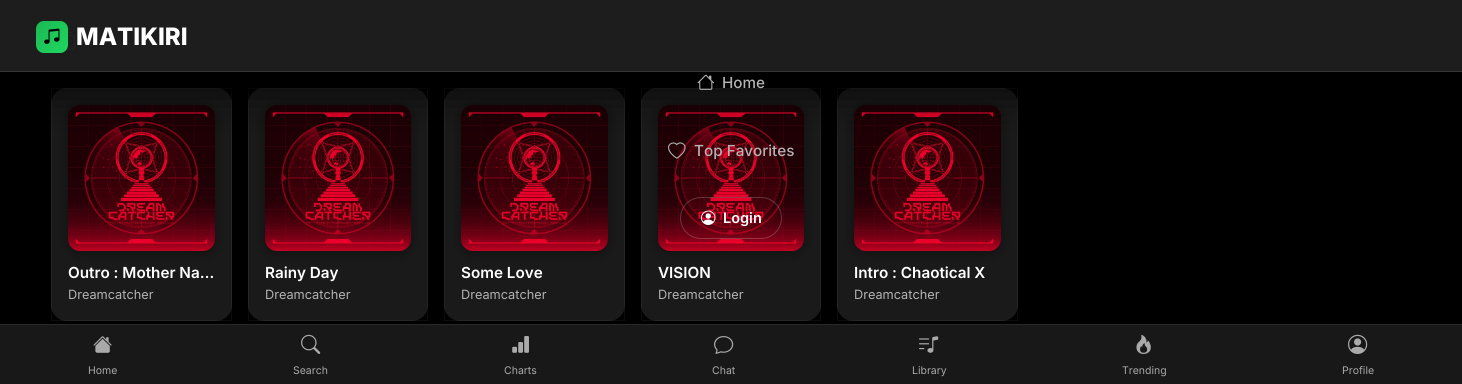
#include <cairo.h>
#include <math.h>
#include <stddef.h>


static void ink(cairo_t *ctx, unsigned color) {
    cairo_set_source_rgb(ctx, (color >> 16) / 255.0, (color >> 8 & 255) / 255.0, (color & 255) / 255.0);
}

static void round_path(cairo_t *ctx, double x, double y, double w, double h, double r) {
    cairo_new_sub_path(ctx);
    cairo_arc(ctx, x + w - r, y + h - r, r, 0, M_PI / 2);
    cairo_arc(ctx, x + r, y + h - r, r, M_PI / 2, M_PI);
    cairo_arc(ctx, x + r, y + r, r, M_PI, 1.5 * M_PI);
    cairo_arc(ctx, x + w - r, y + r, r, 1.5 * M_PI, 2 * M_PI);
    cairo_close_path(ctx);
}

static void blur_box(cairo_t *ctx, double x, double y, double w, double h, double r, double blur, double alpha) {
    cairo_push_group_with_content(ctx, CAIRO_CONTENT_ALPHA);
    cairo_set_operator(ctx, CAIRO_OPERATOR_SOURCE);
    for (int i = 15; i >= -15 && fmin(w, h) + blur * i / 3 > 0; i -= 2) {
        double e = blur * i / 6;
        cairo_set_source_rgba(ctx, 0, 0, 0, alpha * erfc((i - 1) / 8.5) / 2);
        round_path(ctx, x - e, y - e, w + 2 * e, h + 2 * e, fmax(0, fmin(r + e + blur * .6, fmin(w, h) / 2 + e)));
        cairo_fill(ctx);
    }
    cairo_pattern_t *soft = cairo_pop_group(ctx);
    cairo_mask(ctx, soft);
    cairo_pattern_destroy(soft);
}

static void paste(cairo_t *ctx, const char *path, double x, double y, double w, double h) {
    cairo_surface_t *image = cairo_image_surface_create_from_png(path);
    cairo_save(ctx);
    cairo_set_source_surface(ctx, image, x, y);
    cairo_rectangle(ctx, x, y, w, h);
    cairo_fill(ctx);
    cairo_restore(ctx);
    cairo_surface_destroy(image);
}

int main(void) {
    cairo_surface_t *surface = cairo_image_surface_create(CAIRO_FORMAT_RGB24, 1462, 384);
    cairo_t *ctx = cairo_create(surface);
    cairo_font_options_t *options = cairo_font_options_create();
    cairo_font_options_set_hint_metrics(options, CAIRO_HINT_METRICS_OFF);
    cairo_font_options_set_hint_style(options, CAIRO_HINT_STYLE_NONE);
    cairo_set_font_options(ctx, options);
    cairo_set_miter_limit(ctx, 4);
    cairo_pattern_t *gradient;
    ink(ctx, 0x000000);
    cairo_paint(ctx);
    ink(ctx, 0x1D1D1D);
    cairo_rectangle(ctx, 0, 0, 1462, 71);
    cairo_fill(ctx);
    paste(ctx, "media/5.png", 66, 28, 9, 22);
    ink(ctx, 0x1A1A1A);
    round_path(ctx, 51, 88, 181, 233, 16);
    cairo_fill(ctx);
    cairo_rectangle(ctx, 51.5, 88.5, 180, 232);
    cairo_set_source_rgba(ctx, 1, 1, 1, 0.05);
    cairo_set_line_width(ctx, 1);
    cairo_stroke(ctx);
    ink(ctx, 0x000000);
    blur_box(ctx, 68, 107, 147, 146, 12, 6, 0.4);
    paste(ctx, "media/6.png", 68, 105, 147, 146);
    ink(ctx, 0x1A1A1A);
    round_path(ctx, 248, 88, 180, 233, 16);
    cairo_fill(ctx);
    cairo_rectangle(ctx, 248.5, 88.5, 179, 232);
    cairo_set_source_rgba(ctx, 1, 1, 1, 0.05);
    cairo_stroke(ctx);
    ink(ctx, 0x000000);
    blur_box(ctx, 265, 107, 146, 146, 12, 6, 0.4);
    paste(ctx, "media/7.png", 265, 105, 146, 146);
    ink(ctx, 0x1A1A1A);
    round_path(ctx, 444, 88, 181, 233, 16);
    cairo_fill(ctx);
    cairo_rectangle(ctx, 444.5, 88.5, 180, 232);
    cairo_set_source_rgba(ctx, 1, 1, 1, 0.05);
    cairo_stroke(ctx);
    ink(ctx, 0x000000);
    blur_box(ctx, 461, 107, 147, 146, 12, 6, 0.4);
    paste(ctx, "media/8.png", 461, 105, 147, 146);
    ink(ctx, 0x1A1A1A);
    round_path(ctx, 641, 88, 180, 233, 16);
    cairo_fill(ctx);
    cairo_rectangle(ctx, 641.5, 88.5, 179, 232);
    cairo_set_source_rgba(ctx, 1, 1, 1, 0.05);
    cairo_stroke(ctx);
    ink(ctx, 0x000000);
    blur_box(ctx, 658, 107, 146, 146, 12, 6, 0.4);
    paste(ctx, "media/9.png", 658, 105, 146, 146);
    ink(ctx, 0x1A1A1A);
    round_path(ctx, 837, 88, 181, 233, 16);
    cairo_fill(ctx);
    cairo_rectangle(ctx, 837.5, 88.5, 180, 232);
    cairo_set_source_rgba(ctx, 1, 1, 1, 0.05);
    cairo_stroke(ctx);
    ink(ctx, 0x000000);
    blur_box(ctx, 854, 107, 147, 146, 12, 6, 0.4);
    paste(ctx, "media/10.png", 854, 105, 147, 146);
    cairo_save(ctx);
    cairo_rectangle(ctx, 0, 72, 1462, 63);
    cairo_clip(ctx);
    blur_box(ctx, 0, 16, 1462, 72, 0, 24, 0.8);
    cairo_restore(ctx);
    ink(ctx, 0x383838);
    cairo_rectangle(ctx, 0, 71, 1462, 1);
    cairo_fill(ctx);
    gradient = cairo_pattern_create_linear(36, 21, 68, 53);
    cairo_pattern_add_color_stop_rgba(gradient, 0, 0.114, 0.725, 0.329, 1);
    cairo_pattern_add_color_stop_rgba(gradient, 1, 0.118, 0.843, 0.376, 1);
    cairo_set_source(ctx, gradient);
    cairo_pattern_destroy(gradient);
    round_path(ctx, 36, 21, 32, 32, 8);
    cairo_fill(ctx);
    paste(ctx, "media/1.png", 44, 28, 16, 16);
    cairo_select_font_face(ctx, "Inter ExtraBold", CAIRO_FONT_SLANT_NORMAL, CAIRO_FONT_WEIGHT_NORMAL);
    cairo_set_font_size(ctx, 24);
    ink(ctx, 0xFFFFFF);
    cairo_move_to(ctx, 76, 45);
    cairo_show_text(ctx, "MATIKIRI");
    paste(ctx, "media/2.png", 697, 74, 17, 16);
    cairo_select_font_face(ctx, "Inter Medium", CAIRO_FONT_SLANT_NORMAL, CAIRO_FONT_WEIGHT_NORMAL);
    cairo_set_font_size(ctx, 15.25);
    ink(ctx, 0xB3B3B3);
    cairo_move_to(ctx, 722, 88);
    cairo_show_text(ctx, "Home");
    paste(ctx, "media/3.png", 668, 142, 18, 17);
    cairo_move_to(ctx, 694, 156);
    cairo_show_text(ctx, "Top Favorites");
    round_path(ctx, 680.5, 197.5, 101, 41, 20.5);
    cairo_set_source_rgba(ctx, 1, 1, 1, 0.2);
    cairo_stroke(ctx);
    paste(ctx, "media/4.png", 701, 210, 15, 15);
    cairo_select_font_face(ctx, "Inter SemiBold", CAIRO_FONT_SLANT_NORMAL, CAIRO_FONT_WEIGHT_NORMAL);
    cairo_set_font_size(ctx, 14.5);
    ink(ctx, 0xFFFFFF);
    cairo_move_to(ctx, 723, 223);
    cairo_show_text(ctx, "Login");
    cairo_set_font_size(ctx, 15.25);
    cairo_move_to(ctx, 68, 278);
    cairo_show_text(ctx, "Outro : Mother Na…");
    cairo_select_font_face(ctx, "Inter", CAIRO_FONT_SLANT_NORMAL, CAIRO_FONT_WEIGHT_NORMAL);
    cairo_set_font_size(ctx, 12.75);
    ink(ctx, 0xB3B3B3);
    cairo_move_to(ctx, 68, 299);
    cairo_show_text(ctx, "Dreamcatcher");
    cairo_select_font_face(ctx, "Inter SemiBold", CAIRO_FONT_SLANT_NORMAL, CAIRO_FONT_WEIGHT_NORMAL);
    cairo_set_font_size(ctx, 15.25);
    ink(ctx, 0xFFFFFF);
    cairo_move_to(ctx, 265, 278);
    cairo_show_text(ctx, "Rainy Day");
    cairo_select_font_face(ctx, "Inter", CAIRO_FONT_SLANT_NORMAL, CAIRO_FONT_WEIGHT_NORMAL);
    cairo_set_font_size(ctx, 12.75);
    ink(ctx, 0xB3B3B3);
    cairo_move_to(ctx, 265, 299);
    cairo_show_text(ctx, "Dreamcatcher");
    cairo_select_font_face(ctx, "Inter SemiBold", CAIRO_FONT_SLANT_NORMAL, CAIRO_FONT_WEIGHT_NORMAL);
    cairo_set_font_size(ctx, 15.25);
    ink(ctx, 0xFFFFFF);
    cairo_move_to(ctx, 461, 278);
    cairo_show_text(ctx, "Some Love");
    cairo_select_font_face(ctx, "Inter", CAIRO_FONT_SLANT_NORMAL, CAIRO_FONT_WEIGHT_NORMAL);
    cairo_set_font_size(ctx, 12.75);
    ink(ctx, 0xB3B3B3);
    cairo_move_to(ctx, 461, 299);
    cairo_show_text(ctx, "Dreamcatcher");
    cairo_select_font_face(ctx, "Inter SemiBold", CAIRO_FONT_SLANT_NORMAL, CAIRO_FONT_WEIGHT_NORMAL);
    cairo_set_font_size(ctx, 15.25);
    ink(ctx, 0xFFFFFF);
    cairo_move_to(ctx, 658, 278);
    cairo_show_text(ctx, "VISION");
    cairo_select_font_face(ctx, "Inter", CAIRO_FONT_SLANT_NORMAL, CAIRO_FONT_WEIGHT_NORMAL);
    cairo_set_font_size(ctx, 12.75);
    ink(ctx, 0xB3B3B3);
    cairo_move_to(ctx, 658, 299);
    cairo_show_text(ctx, "Dreamcatcher");
    cairo_select_font_face(ctx, "Inter SemiBold", CAIRO_FONT_SLANT_NORMAL, CAIRO_FONT_WEIGHT_NORMAL);
    cairo_set_font_size(ctx, 15.25);
    ink(ctx, 0xFFFFFF);
    cairo_move_to(ctx, 854, 278);
    cairo_show_text(ctx, "Intro : Chaotical X");
    cairo_select_font_face(ctx, "Inter", CAIRO_FONT_SLANT_NORMAL, CAIRO_FONT_WEIGHT_NORMAL);
    cairo_set_font_size(ctx, 12.75);
    ink(ctx, 0xB3B3B3);
    cairo_move_to(ctx, 854, 299);
    cairo_show_text(ctx, "Dreamcatcher");
    ink(ctx, 0x181818);
    cairo_rectangle(ctx, 0, 325, 1462, 59);
    cairo_fill(ctx);
    ink(ctx, 0x282828);
    cairo_rectangle(ctx, 0, 324, 1462, 1);
    cairo_fill(ctx);
    paste(ctx, "media/11.png", 93, 336, 19, 17);
    cairo_set_font_size(ctx, 10.5);
    ink(ctx, 0xAAAAAA);
    cairo_move_to(ctx, 88, 374);
    cairo_show_text(ctx, "Home");
    paste(ctx, "media/12.png", 301, 334, 20, 20);
    cairo_move_to(ctx, 293, 374);
    cairo_show_text(ctx, "Search");
    paste(ctx, "media/13.png", 512, 336, 17, 17);
    cairo_move_to(ctx, 504, 374);
    cairo_show_text(ctx, "Charts");
    paste(ctx, "media/14.png", 714, 336, 20, 18);
    cairo_move_to(ctx, 712, 374);
    cairo_show_text(ctx, "Chat");
    paste(ctx, "media/15.png", 919, 336, 20, 17);
    cairo_move_to(ctx, 912, 374);
    cairo_show_text(ctx, "Library");
    paste(ctx, "media/16.png", 1136, 334, 15, 20);
    cairo_move_to(ctx, 1122, 374);
    cairo_show_text(ctx, "Trending");
    paste(ctx, "media/17.png", 1348, 334, 20, 20);
    cairo_move_to(ctx, 1342, 374);
    cairo_show_text(ctx, "Profile");
    cairo_surface_write_to_png(surface, "image.png");
    cairo_font_options_destroy(options);
    cairo_destroy(ctx);
    cairo_surface_destroy(surface);
    return 0;
}
